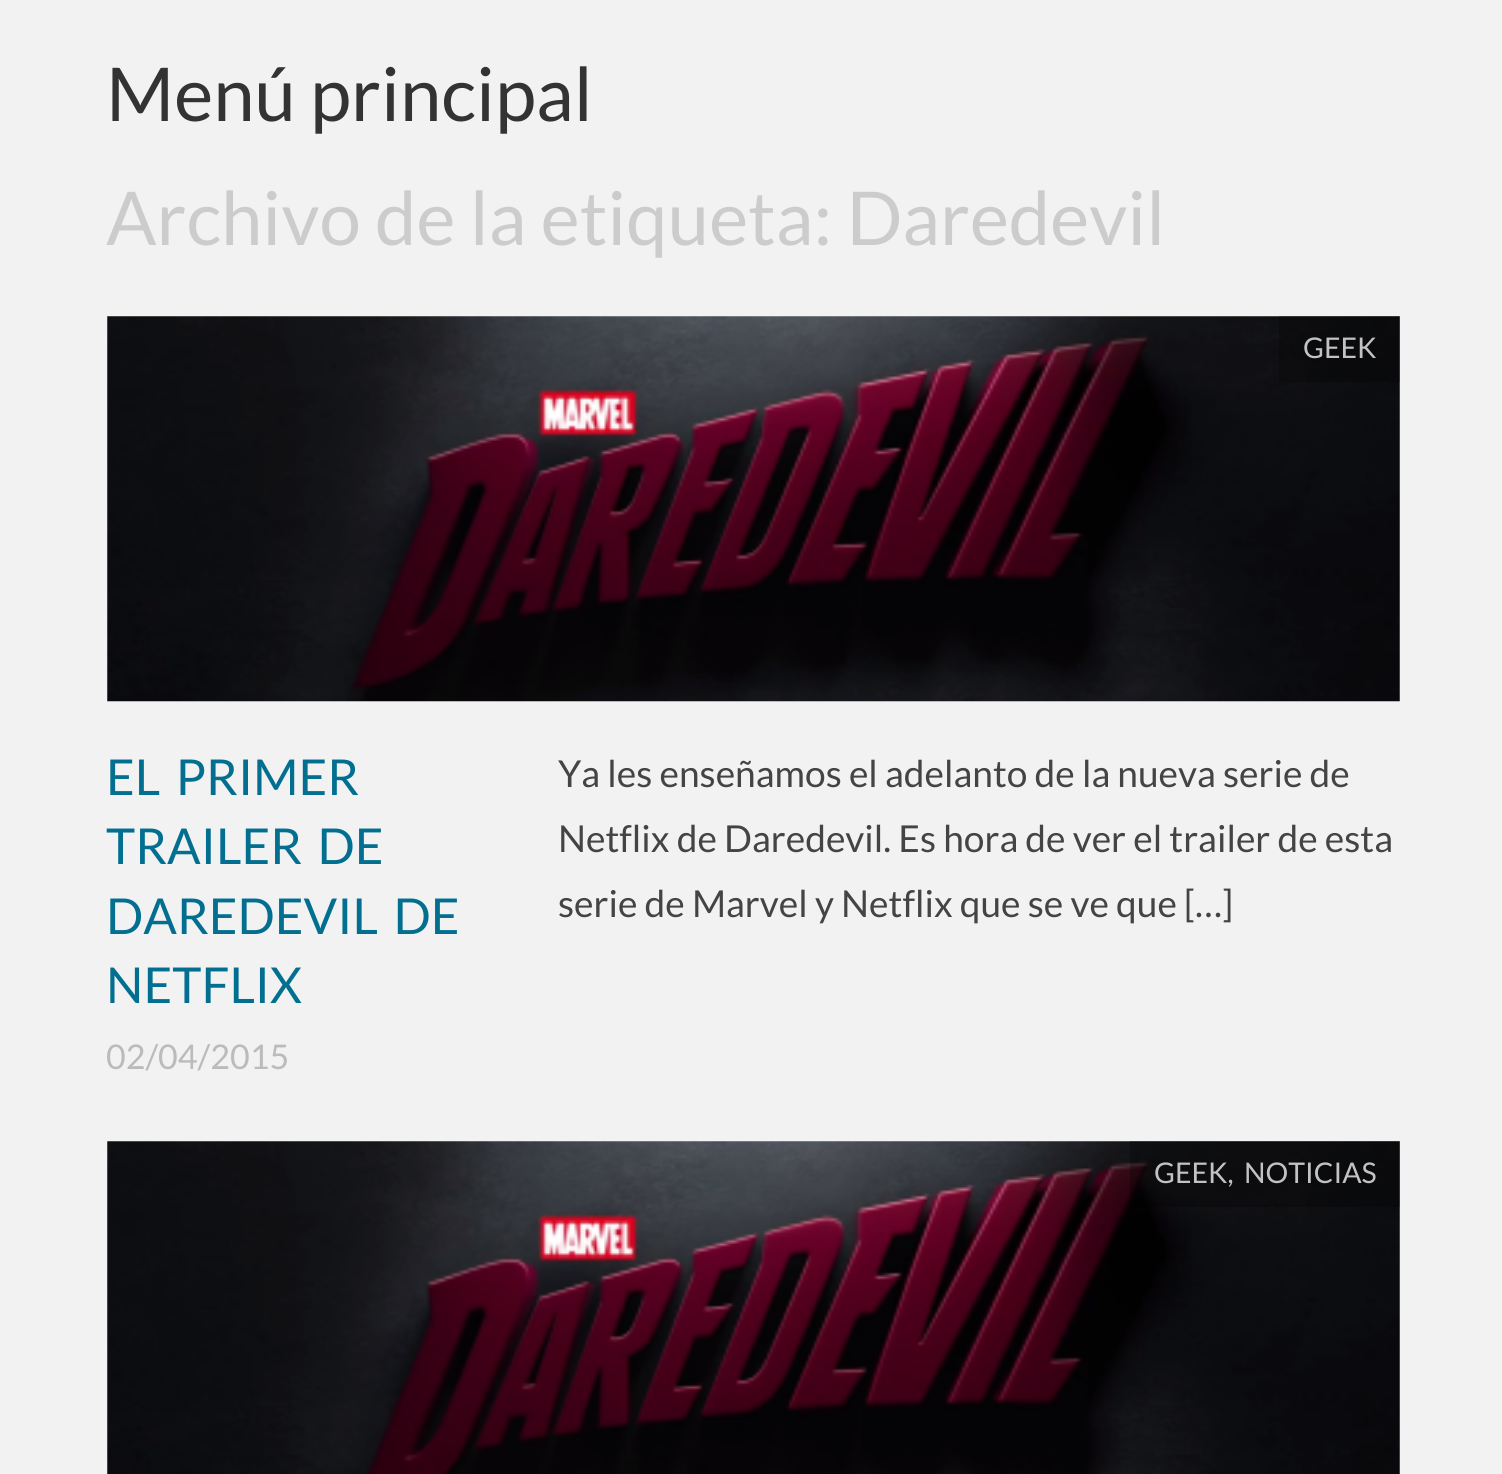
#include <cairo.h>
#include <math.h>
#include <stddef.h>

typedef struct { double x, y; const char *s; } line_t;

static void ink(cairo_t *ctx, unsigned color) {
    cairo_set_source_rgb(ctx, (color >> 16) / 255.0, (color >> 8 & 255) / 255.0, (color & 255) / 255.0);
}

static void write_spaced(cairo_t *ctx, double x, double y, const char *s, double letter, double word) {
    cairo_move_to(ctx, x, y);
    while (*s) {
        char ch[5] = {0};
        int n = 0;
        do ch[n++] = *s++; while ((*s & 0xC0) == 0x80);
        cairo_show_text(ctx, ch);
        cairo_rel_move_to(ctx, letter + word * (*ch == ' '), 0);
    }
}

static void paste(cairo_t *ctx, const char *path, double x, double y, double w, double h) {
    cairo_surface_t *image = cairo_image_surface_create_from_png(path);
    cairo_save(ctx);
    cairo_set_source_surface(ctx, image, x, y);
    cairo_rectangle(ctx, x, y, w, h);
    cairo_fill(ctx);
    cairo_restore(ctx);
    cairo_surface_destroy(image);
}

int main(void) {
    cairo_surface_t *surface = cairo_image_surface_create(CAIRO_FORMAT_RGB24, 1502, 1474);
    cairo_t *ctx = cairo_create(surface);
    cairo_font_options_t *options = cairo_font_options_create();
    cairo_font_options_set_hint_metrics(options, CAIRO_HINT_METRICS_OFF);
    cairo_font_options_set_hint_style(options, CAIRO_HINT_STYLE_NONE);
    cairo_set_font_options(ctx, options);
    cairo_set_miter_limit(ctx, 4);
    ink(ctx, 0xF2F2F2);
    cairo_paint(ctx);
    cairo_select_font_face(ctx, "Lato", CAIRO_FONT_SLANT_NORMAL, CAIRO_FONT_WEIGHT_NORMAL);
    cairo_set_font_size(ctx, 74.25);
    ink(ctx, 0x333333);
    cairo_move_to(ctx, 106, 121);
    cairo_show_text(ctx, "Menú principal");
    ink(ctx, 0xCCCCCC);
    cairo_move_to(ctx, 106, 245);
    cairo_show_text(ctx, "Archivo de la etiqueta: Daredevil");
    paste(ctx, "media/1.png", 107, 316, 1293, 386);
    cairo_set_source_rgba(ctx, 0, 0, 0, 0.25);
    cairo_rectangle(ctx, 1279, 316, 121, 66);
    cairo_fill(ctx);
    cairo_set_font_size(ctx, 28.5);
    ink(ctx, 0xC2C2C3);
    cairo_move_to(ctx, 1303, 358);
    cairo_show_text(ctx, "GEEK");
    cairo_set_font_size(ctx, 49.5);
    ink(ctx, 0x026F90);
    {
        static const line_t items[] = {
            {106, 795, "EL PRIMER"},
            {106, 864, "TRAILER DE"},
            {106, 934, "DAREDEVIL DE"},
        };
        for (size_t i = 0; i < sizeof items / sizeof *items; i++) {
            write_spaced(ctx, items[i].x, items[i].y, items[i].s, 0, 6);
        }
    }
    cairo_move_to(ctx, 106, 1003);
    cairo_show_text(ctx, "NETFLIX");
    cairo_set_font_size(ctx, 34);
    ink(ctx, 0xBBBBBB);
    cairo_move_to(ctx, 106, 1069);
    cairo_show_text(ctx, "02/04/2015");
    cairo_set_font_size(ctx, 37.1);
    ink(ctx, 0x444444);
    {
        static const line_t items[] = {
            {558, 787, "Ya les enseñamos el adelanto de la nueva serie de"},
            {558, 852, "Netflix de Daredevil. Es hora de ver el trailer de esta"},
            {558, 917, "serie de Marvel y Netflix que se ve que […]"},
        };
        for (size_t i = 0; i < sizeof items / sizeof *items; i++) {
            cairo_move_to(ctx, items[i].x, items[i].y);
            cairo_show_text(ctx, items[i].s);
        }
    }
    paste(ctx, "media/2.png", 107, 1141, 1293, 333);
    cairo_set_source_rgba(ctx, 0, 0, 0, 0.25);
    cairo_rectangle(ctx, 1130, 1141, 270, 66);
    cairo_fill(ctx);
    cairo_set_font_size(ctx, 28.5);
    ink(ctx, 0xC2C2C3);
    cairo_move_to(ctx, 1154, 1183);
    cairo_show_text(ctx, "GEEK,");
    cairo_move_to(ctx, 1244, 1183);
    cairo_show_text(ctx, "NOTICIAS");
    cairo_surface_write_to_png(surface, "image.png");
    cairo_font_options_destroy(options);
    cairo_destroy(ctx);
    cairo_surface_destroy(surface);
    return 0;
}
